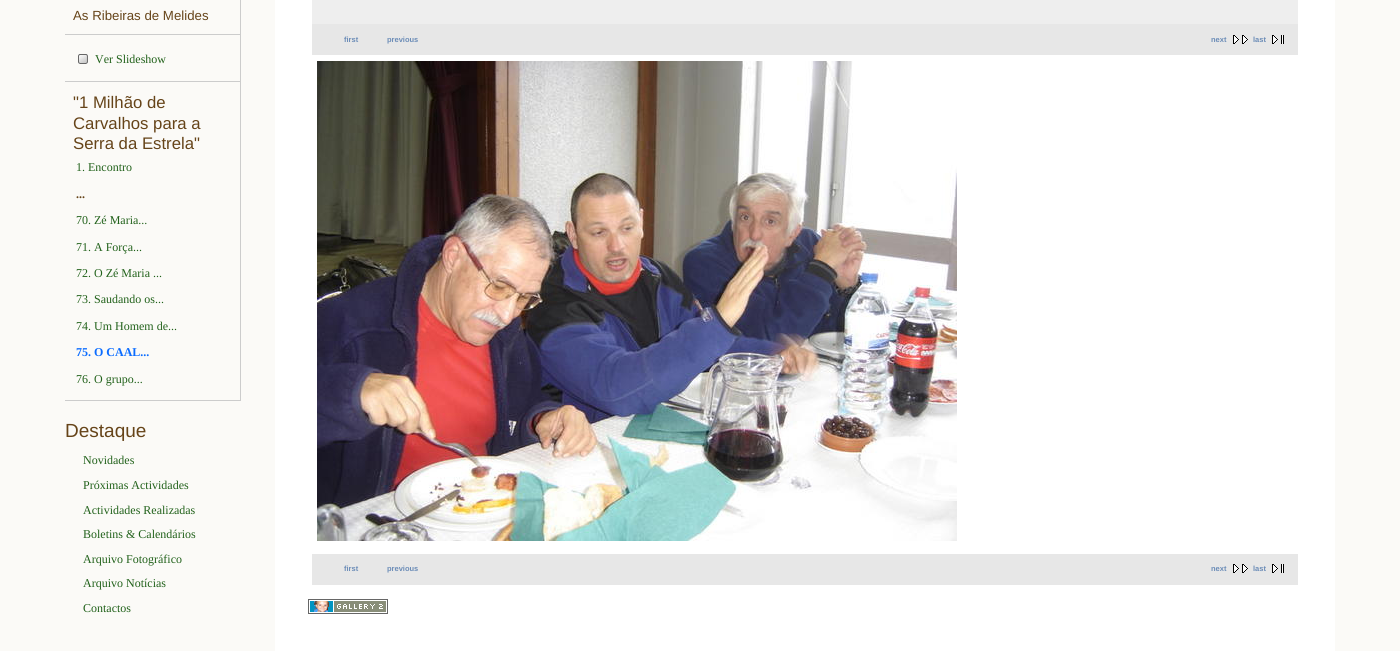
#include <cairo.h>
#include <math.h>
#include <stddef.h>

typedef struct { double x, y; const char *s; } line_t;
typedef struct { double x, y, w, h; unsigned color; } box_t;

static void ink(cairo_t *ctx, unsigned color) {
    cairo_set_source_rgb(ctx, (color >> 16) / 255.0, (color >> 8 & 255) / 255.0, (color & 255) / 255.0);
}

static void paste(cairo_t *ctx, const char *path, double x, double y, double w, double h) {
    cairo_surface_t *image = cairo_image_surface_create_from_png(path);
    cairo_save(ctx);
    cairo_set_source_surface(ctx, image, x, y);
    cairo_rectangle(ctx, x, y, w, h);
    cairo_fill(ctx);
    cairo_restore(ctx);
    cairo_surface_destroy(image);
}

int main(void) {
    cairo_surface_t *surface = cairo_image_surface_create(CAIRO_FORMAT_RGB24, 1400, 651);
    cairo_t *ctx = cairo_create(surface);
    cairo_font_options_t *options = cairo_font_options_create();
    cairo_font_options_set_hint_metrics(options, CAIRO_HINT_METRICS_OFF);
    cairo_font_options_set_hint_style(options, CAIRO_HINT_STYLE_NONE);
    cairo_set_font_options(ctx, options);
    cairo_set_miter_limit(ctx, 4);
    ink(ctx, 0xFBFAF7);
    cairo_paint(ctx);
    ink(ctx, 0xCCCCCC);
    cairo_rectangle(ctx, 240, 0, 1, 401);
    cairo_fill(ctx);
    cairo_rectangle(ctx, 65, 34, 175, 1);
    cairo_fill(ctx);
    cairo_select_font_face(ctx, "Liberation Sans", CAIRO_FONT_SLANT_NORMAL, CAIRO_FONT_WEIGHT_NORMAL);
    cairo_set_font_size(ctx, 13.25);
    ink(ctx, 0x664419);
    cairo_move_to(ctx, 73, 20);
    cairo_show_text(ctx, "As Ribeiras de Melides");
    ink(ctx, 0xCCCCCC);
    cairo_rectangle(ctx, 65, 81, 175, 1);
    cairo_fill(ctx);
    paste(ctx, "media/1.png", 78, 54, 10, 10);
    cairo_select_font_face(ctx, "Liberation Serif", CAIRO_FONT_SLANT_NORMAL, CAIRO_FONT_WEIGHT_NORMAL);
    cairo_set_font_size(ctx, 12);
    ink(ctx, 0x21611A);
    cairo_move_to(ctx, 95, 63);
    cairo_show_text(ctx, "Ver Slideshow");
    ink(ctx, 0xCCCCCC);
    cairo_rectangle(ctx, 65, 400, 175, 1);
    cairo_fill(ctx);
    cairo_select_font_face(ctx, "Liberation Sans", CAIRO_FONT_SLANT_NORMAL, CAIRO_FONT_WEIGHT_NORMAL);
    cairo_set_font_size(ctx, 16.75);
    ink(ctx, 0x664419);
    {
        static const line_t items[] = {
            {73, 108, "\"1 Milhão de"},
            {73, 129, "Carvalhos para a"},
            {73, 149, "Serra da Estrela\""},
        };
        for (size_t i = 0; i < sizeof items / sizeof *items; i++) {
            cairo_move_to(ctx, items[i].x, items[i].y);
            cairo_show_text(ctx, items[i].s);
        }
    }
    cairo_select_font_face(ctx, "Liberation Serif", CAIRO_FONT_SLANT_NORMAL, CAIRO_FONT_WEIGHT_NORMAL);
    cairo_set_font_size(ctx, 12);
    ink(ctx, 0x21611A);
    cairo_move_to(ctx, 76, 171);
    cairo_show_text(ctx, "1. Encontro");
    cairo_select_font_face(ctx, "Liberation Serif", CAIRO_FONT_SLANT_NORMAL, CAIRO_FONT_WEIGHT_BOLD);
    ink(ctx, 0x664419);
    cairo_move_to(ctx, 76, 198);
    cairo_show_text(ctx, "...");
    cairo_select_font_face(ctx, "Liberation Serif", CAIRO_FONT_SLANT_NORMAL, CAIRO_FONT_WEIGHT_NORMAL);
    ink(ctx, 0x21611A);
    {
        static const line_t items[] = {
            {76, 224, "70. Zé Maria..."},
            {76, 251, "71. A Força..."},
            {76, 277, "72. O Zé Maria ..."},
            {76, 303, "73. Saudando os..."},
            {76, 330, "74. Um Homem de..."},
        };
        for (size_t i = 0; i < sizeof items / sizeof *items; i++) {
            cairo_move_to(ctx, items[i].x, items[i].y);
            cairo_show_text(ctx, items[i].s);
        }
    }
    cairo_select_font_face(ctx, "Liberation Serif", CAIRO_FONT_SLANT_NORMAL, CAIRO_FONT_WEIGHT_BOLD);
    ink(ctx, 0x0B6CFF);
    cairo_move_to(ctx, 76, 356);
    cairo_show_text(ctx, "75. O CAAL...");
    cairo_select_font_face(ctx, "Liberation Serif", CAIRO_FONT_SLANT_NORMAL, CAIRO_FONT_WEIGHT_NORMAL);
    ink(ctx, 0x21611A);
    cairo_move_to(ctx, 76, 383);
    cairo_show_text(ctx, "76. O grupo...");
    cairo_select_font_face(ctx, "Liberation Sans", CAIRO_FONT_SLANT_NORMAL, CAIRO_FONT_WEIGHT_NORMAL);
    cairo_set_font_size(ctx, 19);
    ink(ctx, 0x664419);
    cairo_move_to(ctx, 65, 437);
    cairo_show_text(ctx, "Destaque");
    cairo_select_font_face(ctx, "Liberation Serif", CAIRO_FONT_SLANT_NORMAL, CAIRO_FONT_WEIGHT_NORMAL);
    cairo_set_font_size(ctx, 12);
    ink(ctx, 0x21611A);
    {
        static const line_t items[] = {
            {83, 464, "Novidades"},
            {83, 489, "Próximas Actividades"},
            {83, 514, "Actividades Realizadas"},
            {83, 538, "Boletins & Calendários"},
            {83, 563, "Arquivo Fotográfico"},
            {83, 587, "Arquivo Notícias"},
            {83, 612, "Contactos"},
        };
        for (size_t i = 0; i < sizeof items / sizeof *items; i++) {
            cairo_move_to(ctx, items[i].x, items[i].y);
            cairo_show_text(ctx, items[i].s);
        }
    }
    {
        static const box_t items[] = {
            {275, 0, 1060, 651, 0xFFFFFF},
            {312, 0, 986, 24, 0xEEEEEE},
            {312, 24, 986, 31, 0xE7E7E7},
        };
        for (size_t i = 0; i < sizeof items / sizeof *items; i++) {
            ink(ctx, items[i].color);
            cairo_rectangle(ctx, items[i].x, items[i].y, items[i].w, items[i].h);
            cairo_fill(ctx);
        }
    }
    cairo_select_font_face(ctx, "Liberation Sans", CAIRO_FONT_SLANT_NORMAL, CAIRO_FONT_WEIGHT_BOLD);
    cairo_set_font_size(ctx, 7.5);
    ink(ctx, 0x6B8CB7);
    {
        static const line_t items[] = {
            {344, 42, "first"},
            {387, 42, "previous"},
            {1211, 42, "next"},
        };
        for (size_t i = 0; i < sizeof items / sizeof *items; i++) {
            cairo_move_to(ctx, items[i].x, items[i].y);
            cairo_show_text(ctx, items[i].s);
        }
    }
    paste(ctx, "media/2.png", 1233, 35, 15, 9);
    cairo_move_to(ctx, 1253, 42);
    cairo_show_text(ctx, "last");
    paste(ctx, "media/3.png", 1272, 35, 12, 9);
    paste(ctx, "media/4.png", 317, 61, 640, 480);
    ink(ctx, 0xE7E7E7);
    cairo_rectangle(ctx, 312, 554, 986, 31);
    cairo_fill(ctx);
    ink(ctx, 0x6B8CB7);
    {
        static const line_t items[] = {
            {344, 571, "first"},
            {387, 571, "previous"},
            {1211, 571, "next"},
        };
        for (size_t i = 0; i < sizeof items / sizeof *items; i++) {
            cairo_move_to(ctx, items[i].x, items[i].y);
            cairo_show_text(ctx, items[i].s);
        }
    }
    paste(ctx, "media/2.png", 1233, 564, 15, 9);
    cairo_move_to(ctx, 1253, 571);
    cairo_show_text(ctx, "last");
    paste(ctx, "media/3.png", 1272, 564, 12, 9);
    paste(ctx, "media/5.png", 308, 599, 80, 15);
    cairo_surface_write_to_png(surface, "image.png");
    cairo_font_options_destroy(options);
    cairo_destroy(ctx);
    cairo_surface_destroy(surface);
    return 0;
}
